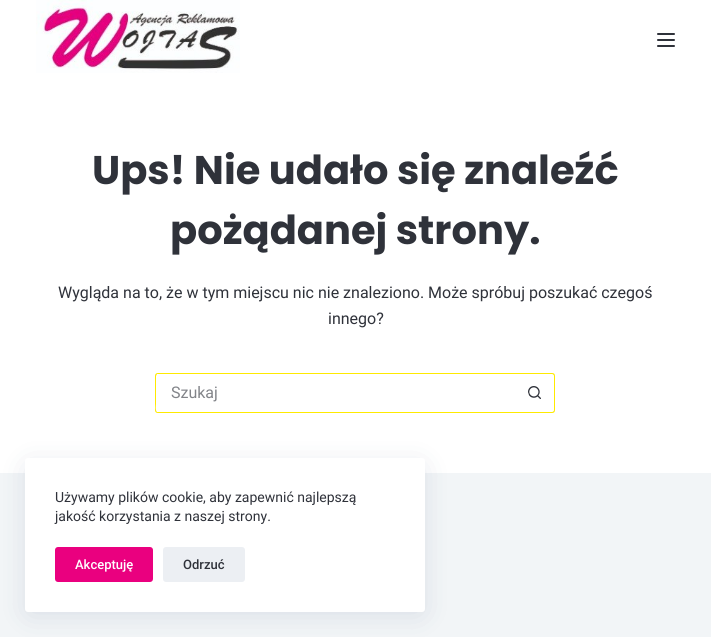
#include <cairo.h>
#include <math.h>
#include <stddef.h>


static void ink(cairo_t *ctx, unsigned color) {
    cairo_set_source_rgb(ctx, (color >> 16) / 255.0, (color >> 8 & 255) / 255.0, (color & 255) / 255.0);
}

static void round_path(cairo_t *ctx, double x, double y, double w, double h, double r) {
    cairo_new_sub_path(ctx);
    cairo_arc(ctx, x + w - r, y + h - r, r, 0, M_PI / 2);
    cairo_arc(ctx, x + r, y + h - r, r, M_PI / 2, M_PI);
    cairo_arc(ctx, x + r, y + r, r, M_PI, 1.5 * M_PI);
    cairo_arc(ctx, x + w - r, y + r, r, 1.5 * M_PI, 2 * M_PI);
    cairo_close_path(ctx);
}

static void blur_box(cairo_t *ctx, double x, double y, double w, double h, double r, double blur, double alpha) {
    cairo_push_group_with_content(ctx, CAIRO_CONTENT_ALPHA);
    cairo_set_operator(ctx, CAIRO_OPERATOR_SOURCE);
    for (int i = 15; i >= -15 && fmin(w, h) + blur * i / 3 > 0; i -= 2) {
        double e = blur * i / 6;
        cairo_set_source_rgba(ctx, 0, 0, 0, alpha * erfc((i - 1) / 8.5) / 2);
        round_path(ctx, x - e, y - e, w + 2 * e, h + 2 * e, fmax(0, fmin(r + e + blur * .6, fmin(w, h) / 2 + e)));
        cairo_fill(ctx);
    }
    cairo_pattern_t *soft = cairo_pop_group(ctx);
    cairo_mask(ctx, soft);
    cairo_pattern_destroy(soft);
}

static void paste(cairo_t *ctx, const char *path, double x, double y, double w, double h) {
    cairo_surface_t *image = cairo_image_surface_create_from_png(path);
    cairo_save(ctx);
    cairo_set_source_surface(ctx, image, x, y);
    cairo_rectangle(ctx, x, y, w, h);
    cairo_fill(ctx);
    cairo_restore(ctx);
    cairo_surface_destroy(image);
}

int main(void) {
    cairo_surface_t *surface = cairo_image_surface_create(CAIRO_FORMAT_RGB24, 711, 637);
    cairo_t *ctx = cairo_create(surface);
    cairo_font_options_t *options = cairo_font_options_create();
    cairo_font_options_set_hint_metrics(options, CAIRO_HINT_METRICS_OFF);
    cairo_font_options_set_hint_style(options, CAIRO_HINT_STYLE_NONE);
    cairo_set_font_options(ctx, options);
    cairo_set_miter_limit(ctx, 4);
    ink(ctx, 0xFFFFFF);
    cairo_paint(ctx);
    paste(ctx, "media/1.png", 36, 0, 204, 73);
    ink(ctx, 0x2F323A);
    round_path(ctx, 657, 33, 18, 2, 1);
    cairo_fill(ctx);
    round_path(ctx, 657, 39, 18, 2, 1);
    cairo_fill(ctx);
    round_path(ctx, 657, 45, 18, 2, 1);
    cairo_fill(ctx);
    cairo_select_font_face(ctx, "Poppins", CAIRO_FONT_SLANT_NORMAL, CAIRO_FONT_WEIGHT_BOLD);
    cairo_set_font_size(ctx, 40);
    cairo_move_to(ctx, 92, 184);
    cairo_show_text(ctx, "Ups! Nie udało się znaleźć");
    cairo_move_to(ctx, 170, 244);
    cairo_show_text(ctx, "pożądanej strony.");
    cairo_select_font_face(ctx, "Roboto", CAIRO_FONT_SLANT_NORMAL, CAIRO_FONT_WEIGHT_NORMAL);
    cairo_set_font_size(ctx, 16);
    cairo_move_to(ctx, 58, 298);
    cairo_show_text(ctx, "Wygląda na to, że w tym miejscu nic nie znaleziono. Może spróbuj poszukać czegoś");
    cairo_move_to(ctx, 328, 324);
    cairo_show_text(ctx, "innego?");
    ink(ctx, 0xFEEA00);
    cairo_set_fill_rule(ctx, CAIRO_FILL_RULE_EVEN_ODD);
    cairo_new_path(ctx);
    cairo_move_to(ctx, 158, 373);
    cairo_line_to(ctx, 515, 373);
    cairo_line_to(ctx, 515, 413);
    cairo_line_to(ctx, 158, 413);
    cairo_curve_to(ctx, 156, 413, 155, 412, 155, 410);
    cairo_line_to(ctx, 155, 376);
    cairo_curve_to(ctx, 155, 374, 156, 373, 158, 373);
    cairo_close_path(ctx);
    cairo_move_to(ctx, 158, 374);
    cairo_line_to(ctx, 515, 374);
    cairo_line_to(ctx, 515, 412);
    cairo_line_to(ctx, 157, 412);
    cairo_curve_to(ctx, 155, 410, 156, 405, 156, 404);
    cairo_line_to(ctx, 156, 376);
    cairo_line_to(ctx, 157, 374);
    cairo_close_path(ctx);
    cairo_fill(ctx);
    ink(ctx, 0x828489);
    cairo_move_to(ctx, 171, 398);
    cairo_show_text(ctx, "Szukaj");
    ink(ctx, 0xFEEA00);
    cairo_new_path(ctx);
    cairo_move_to(ctx, 515, 373);
    cairo_line_to(ctx, 552, 373);
    cairo_curve_to(ctx, 554, 373, 555, 374, 555, 376);
    cairo_line_to(ctx, 555, 410);
    cairo_curve_to(ctx, 555, 412, 554, 413, 552, 413);
    cairo_line_to(ctx, 515, 413);
    cairo_close_path(ctx);
    cairo_move_to(ctx, 515, 374);
    cairo_line_to(ctx, 552, 374);
    cairo_curve_to(ctx, 553, 374, 554, 375, 554, 376);
    cairo_line_to(ctx, 554, 410);
    cairo_curve_to(ctx, 554, 411, 553, 412, 552, 412);
    cairo_line_to(ctx, 515, 412);
    cairo_close_path(ctx);
    cairo_fill(ctx);
    paste(ctx, "media/2.png", 528, 386, 13, 13);
    cairo_new_path(ctx);
    cairo_move_to(ctx, 535, 400.5);
    cairo_curve_to(ctx, 531, 400.5, 527.5, 397, 527.5, 393);
    ink(ctx, 0xFFFFFF);
    cairo_set_line_width(ctx, 1.5);
    cairo_set_line_cap(ctx, CAIRO_LINE_CAP_ROUND);
    cairo_stroke(ctx);
    ink(ctx, 0xF2F5F7);
    cairo_rectangle(ctx, 0, 473, 711, 164);
    cairo_fill(ctx);
    ink(ctx, 0x223865);
    blur_box(ctx, 30, 468, 390, 144, 0, 15, 0.15);
    ink(ctx, 0xFFFFFF);
    round_path(ctx, 25, 458, 400, 154, 3);
    cairo_fill(ctx);
    cairo_set_font_size(ctx, 14);
    ink(ctx, 0x2F323A);
    cairo_move_to(ctx, 55, 502);
    cairo_show_text(ctx, "Używamy plików cookie, aby zapewnić najlepszą");
    cairo_move_to(ctx, 55, 521);
    cairo_show_text(ctx, "jakość korzystania z naszej strony.");
    ink(ctx, 0xEA007F);
    round_path(ctx, 55, 547, 98, 35, 3);
    cairo_fill(ctx);
    cairo_select_font_face(ctx, "Roboto Medium", CAIRO_FONT_SLANT_NORMAL, CAIRO_FONT_WEIGHT_NORMAL);
    cairo_set_font_size(ctx, 13);
    ink(ctx, 0xFFFFFF);
    cairo_move_to(ctx, 75, 569);
    cairo_show_text(ctx, "Akceptuję");
    ink(ctx, 0xECEFF3);
    round_path(ctx, 163, 547, 82, 35, 3);
    cairo_fill(ctx);
    ink(ctx, 0x2F323A);
    cairo_move_to(ctx, 183, 569);
    cairo_show_text(ctx, "Odrzuć");
    cairo_surface_write_to_png(surface, "image.png");
    cairo_font_options_destroy(options);
    cairo_destroy(ctx);
    cairo_surface_destroy(surface);
    return 0;
}
